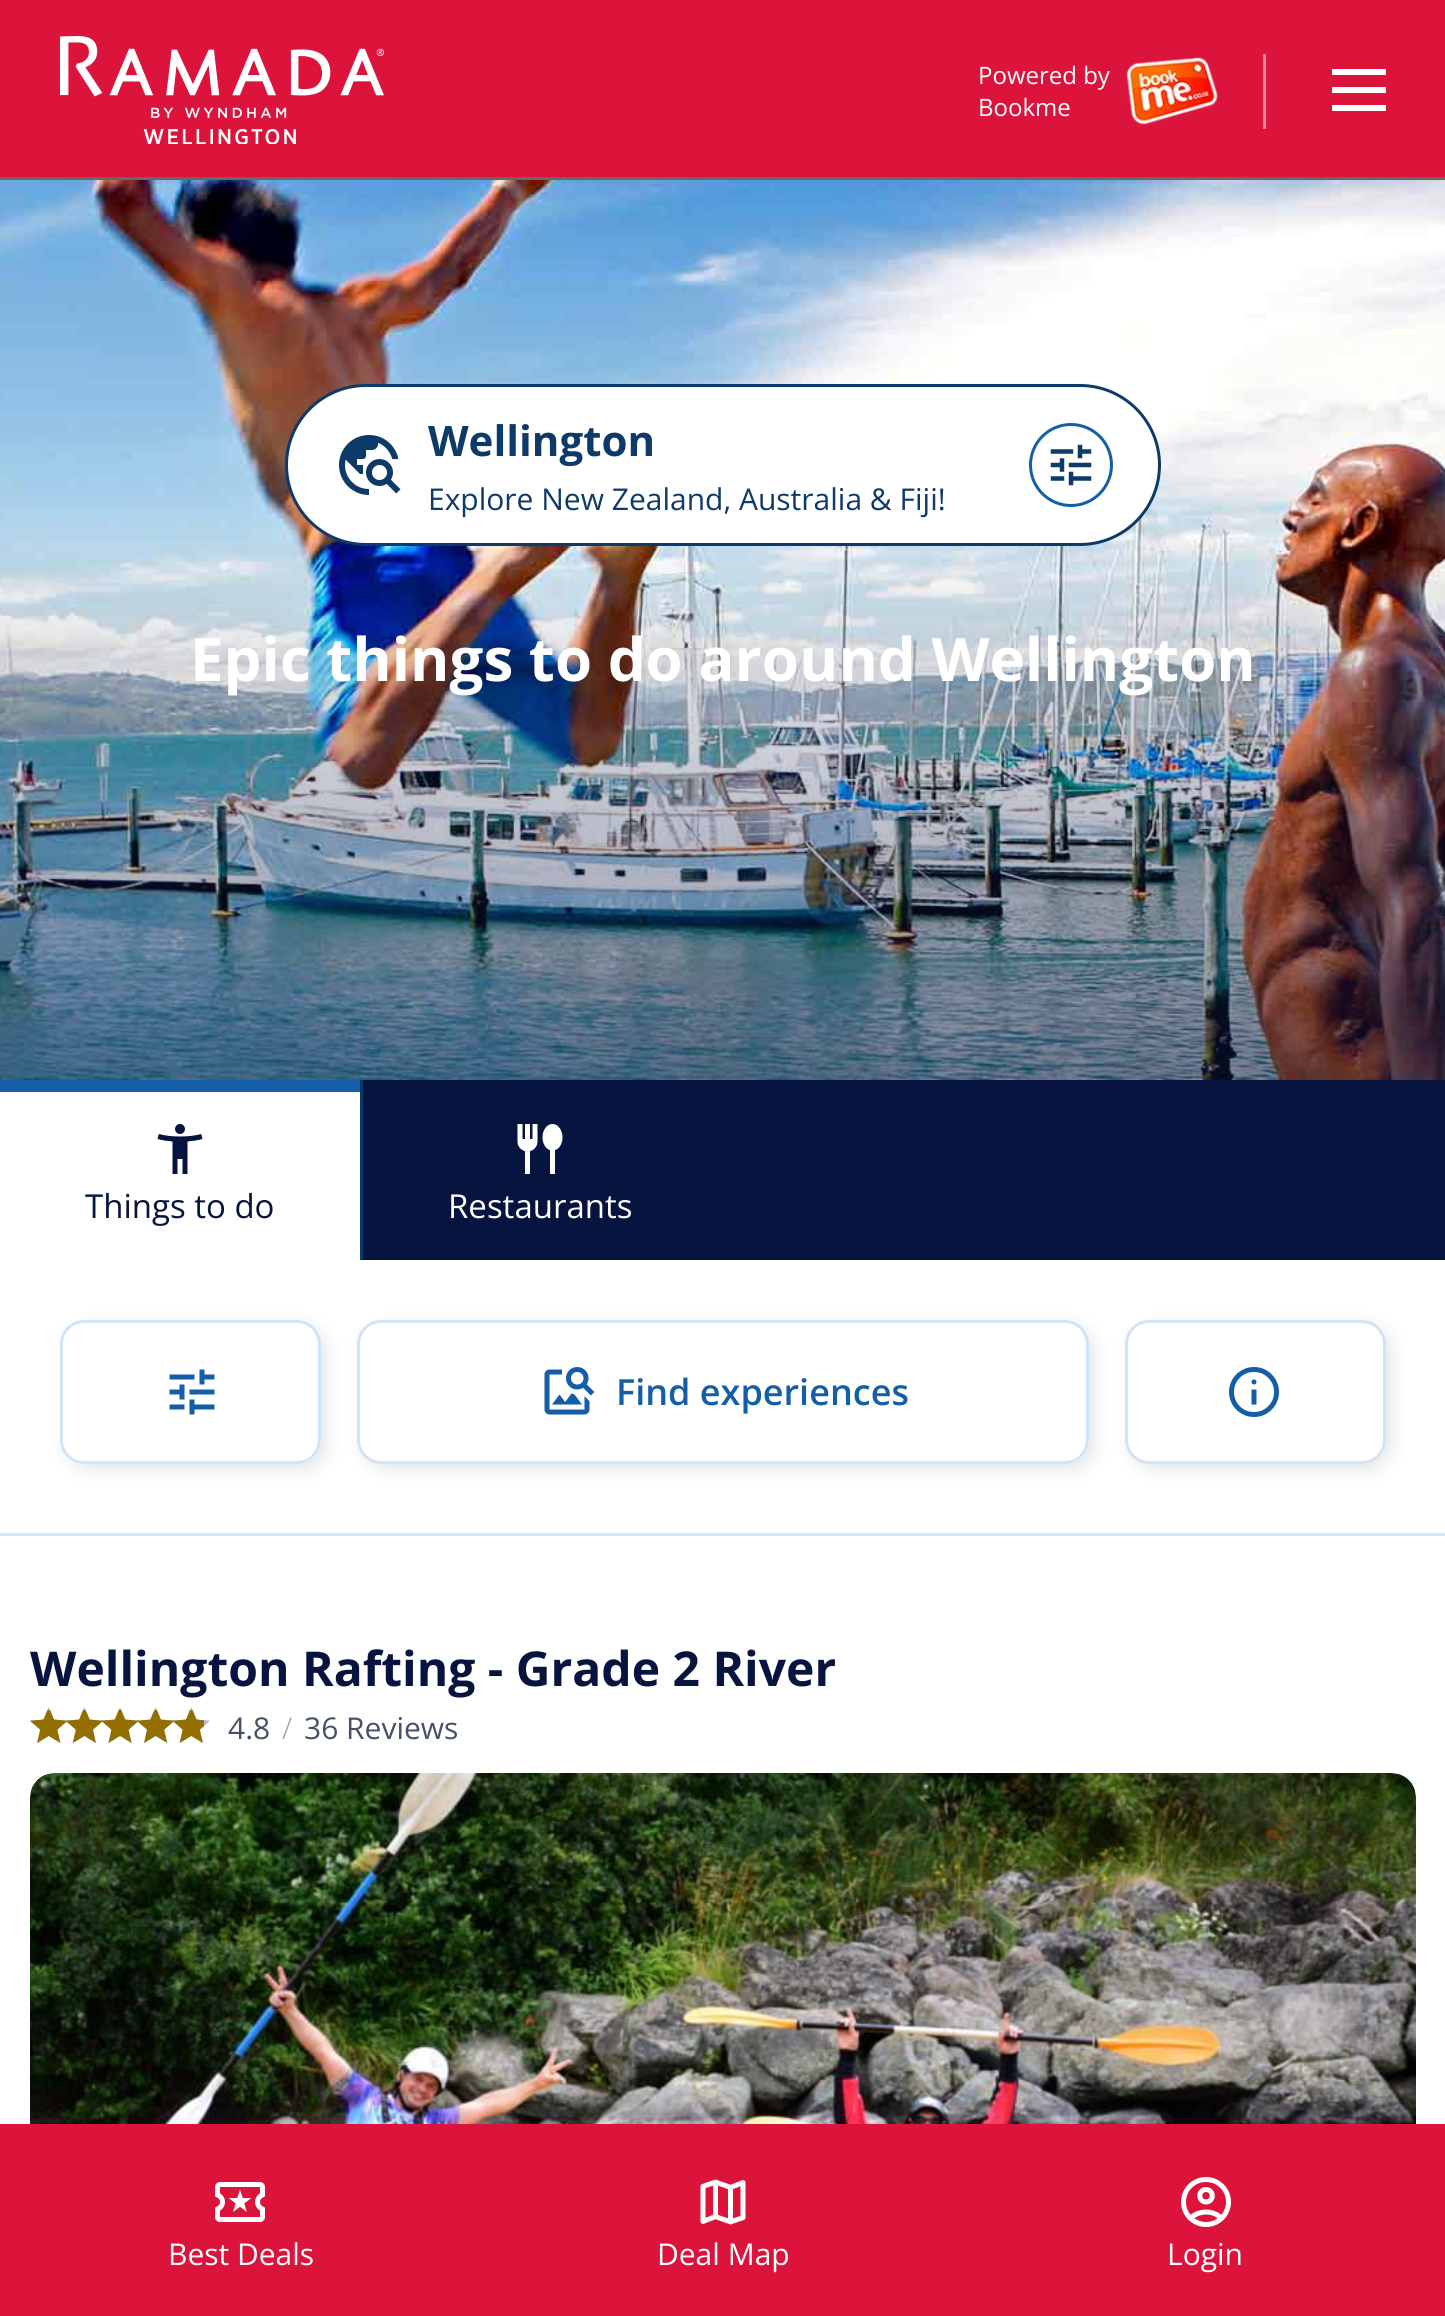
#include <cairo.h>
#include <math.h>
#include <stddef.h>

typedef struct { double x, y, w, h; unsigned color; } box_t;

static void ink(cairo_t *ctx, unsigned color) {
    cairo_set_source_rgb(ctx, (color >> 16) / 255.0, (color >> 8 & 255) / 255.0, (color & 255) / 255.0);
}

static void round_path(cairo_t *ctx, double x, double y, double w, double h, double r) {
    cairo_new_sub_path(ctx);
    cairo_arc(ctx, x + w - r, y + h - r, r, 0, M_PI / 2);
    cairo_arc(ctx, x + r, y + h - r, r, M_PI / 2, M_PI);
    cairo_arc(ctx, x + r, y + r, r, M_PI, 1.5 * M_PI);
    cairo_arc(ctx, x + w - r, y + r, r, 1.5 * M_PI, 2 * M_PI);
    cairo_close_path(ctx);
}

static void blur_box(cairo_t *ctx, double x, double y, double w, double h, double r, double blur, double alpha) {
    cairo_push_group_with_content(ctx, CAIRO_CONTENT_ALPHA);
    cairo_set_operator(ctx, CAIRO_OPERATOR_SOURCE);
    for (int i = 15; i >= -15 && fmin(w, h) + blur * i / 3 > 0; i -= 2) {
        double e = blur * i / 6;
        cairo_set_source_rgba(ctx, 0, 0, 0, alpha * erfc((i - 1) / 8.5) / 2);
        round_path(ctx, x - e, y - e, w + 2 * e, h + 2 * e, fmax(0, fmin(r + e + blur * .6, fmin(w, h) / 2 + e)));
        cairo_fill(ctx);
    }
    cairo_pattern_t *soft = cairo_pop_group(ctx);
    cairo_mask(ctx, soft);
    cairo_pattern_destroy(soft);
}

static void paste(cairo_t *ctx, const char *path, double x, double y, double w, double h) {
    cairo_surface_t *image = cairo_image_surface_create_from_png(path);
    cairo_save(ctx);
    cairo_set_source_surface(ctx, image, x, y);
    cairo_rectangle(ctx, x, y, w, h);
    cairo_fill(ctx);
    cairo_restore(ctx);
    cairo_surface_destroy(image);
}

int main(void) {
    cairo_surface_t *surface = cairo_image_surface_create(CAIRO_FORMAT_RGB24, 1445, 2316);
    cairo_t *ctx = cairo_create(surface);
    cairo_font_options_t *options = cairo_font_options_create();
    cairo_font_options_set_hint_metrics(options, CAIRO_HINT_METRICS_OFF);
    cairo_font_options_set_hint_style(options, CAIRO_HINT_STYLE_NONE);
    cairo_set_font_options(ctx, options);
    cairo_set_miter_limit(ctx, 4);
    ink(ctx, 0xFFFFFF);
    cairo_paint(ctx);
    ink(ctx, 0xDC143C);
    cairo_rectangle(ctx, 0, 0, 1445, 177);
    cairo_fill(ctx);
    ink(ctx, 0x686868);
    cairo_rectangle(ctx, 0, 177, 1445, 3);
    cairo_fill(ctx);
    paste(ctx, "media/1.png", 60, 36, 324, 108);
    paste(ctx, "media/2.png", 1125, 57, 93, 69);
    ink(ctx, 0xEE8A9E);
    cairo_rectangle(ctx, 1263, 54, 3, 75);
    cairo_fill(ctx);
    cairo_select_font_face(ctx, "Open Sans", CAIRO_FONT_SLANT_NORMAL, CAIRO_FONT_WEIGHT_NORMAL);
    cairo_set_font_size(ctx, 24);
    ink(ctx, 0xFFFFFF);
    cairo_move_to(ctx, 978, 84);
    cairo_show_text(ctx, "Powered by");
    cairo_move_to(ctx, 978, 116);
    cairo_show_text(ctx, "Bookme");
    {
        static const box_t items[] = {
            {1332, 69, 54, 6, 0xFFFFFF},
            {1332, 87, 54, 6, 0xFFFFFF},
            {1332, 105, 54, 6, 0xFFFFFF},
        };
        for (size_t i = 0; i < sizeof items / sizeof *items; i++) {
            ink(ctx, items[i].color);
            cairo_rectangle(ctx, items[i].x, items[i].y, items[i].w, items[i].h);
            cairo_fill(ctx);
        }
    }
    paste(ctx, "media/3.png", 0, 180, 1445, 900);
    round_path(ctx, 286.5, 385.5, 873, 159, 79.5);
    cairo_fill_preserve(ctx);
    ink(ctx, 0x0D3A69);
    cairo_set_line_width(ctx, 3);
    cairo_stroke(ctx);
    paste(ctx, "media/4.png", 339, 435, 62, 60);
    cairo_select_font_face(ctx, "Open Sans", CAIRO_FONT_SLANT_NORMAL, CAIRO_FONT_WEIGHT_BOLD);
    cairo_set_font_size(ctx, 42);
    cairo_move_to(ctx, 428, 456);
    cairo_show_text(ctx, "Wellington");
    cairo_select_font_face(ctx, "Open Sans", CAIRO_FONT_SLANT_NORMAL, CAIRO_FONT_WEIGHT_NORMAL);
    cairo_set_font_size(ctx, 30);
    cairo_move_to(ctx, 428, 510);
    cairo_show_text(ctx, "Explore New Zealand, Australia & Fiji!");
    cairo_new_path(ctx);
    cairo_arc(ctx, 1071, 465, 40.5, 0, 2 * M_PI);
    ink(ctx, 0x135EA7);
    cairo_stroke(ctx);
    paste(ctx, "media/5.png", 1050, 444, 42, 42);
    cairo_select_font_face(ctx, "Open Sans", CAIRO_FONT_SLANT_NORMAL, CAIRO_FONT_WEIGHT_BOLD);
    cairo_set_font_size(ctx, 60);
    ink(ctx, 0xFFFFFF);
    cairo_move_to(ctx, 190, 681);
    cairo_show_text(ctx, "Epic things to do around Wellington");
    ink(ctx, 0x081440);
    cairo_rectangle(ctx, 363, 1080, 1082, 180);
    cairo_fill(ctx);
    ink(ctx, 0x135EA7);
    cairo_rectangle(ctx, 0, 1080, 360, 12);
    cairo_fill(ctx);
    paste(ctx, "media/6.png", 157, 1124, 46, 50);
    cairo_select_font_face(ctx, "Open Sans", CAIRO_FONT_SLANT_NORMAL, CAIRO_FONT_WEIGHT_NORMAL);
    cairo_set_font_size(ctx, 33);
    ink(ctx, 0x081440);
    cairo_move_to(ctx, 85, 1218);
    cairo_show_text(ctx, "Things to do");
    ink(ctx, 0x0D3A69);
    cairo_rectangle(ctx, 360, 1080, 3, 180);
    cairo_fill(ctx);
    paste(ctx, "media/7.png", 517, 1124, 46, 50);
    ink(ctx, 0xFFFFFF);
    cairo_move_to(ctx, 448, 1218);
    cairo_show_text(ctx, "Restaurants");
    ink(ctx, 0xD1E4F6);
    cairo_rectangle(ctx, 0, 1533, 1445, 3);
    cairo_fill(ctx);
    cairo_save(ctx);
    cairo_set_fill_rule(ctx, CAIRO_FILL_RULE_EVEN_ODD);
    cairo_new_path(ctx);
    cairo_move_to(ctx, 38, 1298);
    cairo_line_to(ctx, 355, 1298);
    cairo_line_to(ctx, 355, 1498);
    cairo_line_to(ctx, 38, 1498);
    cairo_close_path(ctx);
    cairo_move_to(ctx, 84, 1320);
    cairo_line_to(ctx, 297, 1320);
    cairo_curve_to(ctx, 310.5, 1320, 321, 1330.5, 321, 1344);
    cairo_line_to(ctx, 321, 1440);
    cairo_curve_to(ctx, 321, 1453.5, 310.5, 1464, 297, 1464);
    cairo_line_to(ctx, 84, 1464);
    cairo_curve_to(ctx, 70.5, 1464, 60, 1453.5, 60, 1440);
    cairo_line_to(ctx, 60, 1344);
    cairo_curve_to(ctx, 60, 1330.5, 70.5, 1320, 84, 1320);
    cairo_close_path(ctx);
    cairo_clip(ctx);
    ink(ctx, 0x000000);
    blur_box(ctx, 66, 1326, 261, 144, 24, 9, 0.1);
    cairo_restore(ctx);
    round_path(ctx, 61.5, 1321.5, 258, 141, 22.5);
    cairo_stroke(ctx);
    paste(ctx, "media/8.png", 169, 1369, 46, 46);
    cairo_save(ctx);
    cairo_set_fill_rule(ctx, CAIRO_FILL_RULE_EVEN_ODD);
    cairo_new_path(ctx);
    cairo_move_to(ctx, 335, 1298);
    cairo_line_to(ctx, 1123, 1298);
    cairo_line_to(ctx, 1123, 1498);
    cairo_line_to(ctx, 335, 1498);
    cairo_close_path(ctx);
    cairo_move_to(ctx, 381, 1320);
    cairo_line_to(ctx, 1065, 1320);
    cairo_curve_to(ctx, 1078.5, 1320, 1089, 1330.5, 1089, 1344);
    cairo_line_to(ctx, 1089, 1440);
    cairo_curve_to(ctx, 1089, 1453.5, 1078.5, 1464, 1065, 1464);
    cairo_line_to(ctx, 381, 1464);
    cairo_curve_to(ctx, 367.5, 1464, 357, 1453.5, 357, 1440);
    cairo_line_to(ctx, 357, 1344);
    cairo_curve_to(ctx, 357, 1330.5, 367.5, 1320, 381, 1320);
    cairo_close_path(ctx);
    cairo_clip(ctx);
    ink(ctx, 0x000000);
    blur_box(ctx, 363, 1326, 732, 144, 24, 9, 0.1);
    cairo_restore(ctx);
    round_path(ctx, 358.5, 1321.5, 729, 141, 22.5);
    cairo_stroke(ctx);
    paste(ctx, "media/9.png", 544, 1367, 51, 48);
    cairo_select_font_face(ctx, "Open Sans SemiBold", CAIRO_FONT_SLANT_NORMAL, CAIRO_FONT_WEIGHT_NORMAL);
    cairo_set_font_size(ctx, 36);
    ink(ctx, 0x135EA7);
    cairo_move_to(ctx, 616, 1405);
    cairo_show_text(ctx, "Find experiences");
    cairo_save(ctx);
    cairo_set_fill_rule(ctx, CAIRO_FILL_RULE_EVEN_ODD);
    cairo_new_path(ctx);
    cairo_move_to(ctx, 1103, 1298);
    cairo_line_to(ctx, 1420, 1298);
    cairo_line_to(ctx, 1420, 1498);
    cairo_line_to(ctx, 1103, 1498);
    cairo_close_path(ctx);
    cairo_move_to(ctx, 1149, 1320);
    cairo_line_to(ctx, 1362, 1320);
    cairo_curve_to(ctx, 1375.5, 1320, 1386, 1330.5, 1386, 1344);
    cairo_line_to(ctx, 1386, 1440);
    cairo_curve_to(ctx, 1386, 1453.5, 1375.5, 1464, 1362, 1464);
    cairo_line_to(ctx, 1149, 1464);
    cairo_curve_to(ctx, 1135.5, 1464, 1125, 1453.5, 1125, 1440);
    cairo_line_to(ctx, 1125, 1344);
    cairo_curve_to(ctx, 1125, 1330.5, 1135.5, 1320, 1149, 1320);
    cairo_close_path(ctx);
    cairo_clip(ctx);
    ink(ctx, 0x000000);
    blur_box(ctx, 1131, 1326, 261, 144, 24, 9, 0.1);
    cairo_restore(ctx);
    round_path(ctx, 1126.5, 1321.5, 258, 141, 22.5);
    ink(ctx, 0xD1E4F6);
    cairo_stroke(ctx);
    paste(ctx, "media/10.png", 1229, 1367, 50, 50);
    cairo_select_font_face(ctx, "Open Sans", CAIRO_FONT_SLANT_NORMAL, CAIRO_FONT_WEIGHT_BOLD);
    cairo_set_font_size(ctx, 48);
    ink(ctx, 0x081440);
    cairo_move_to(ctx, 30, 1686);
    cairo_show_text(ctx, "Wellington Rafting - Grade 2 River");
    paste(ctx, "media/11.png", 30, 1707, 180, 36);
    paste(ctx, "media/12.png", 30, 1710, 174, 33);
    cairo_select_font_face(ctx, "Open Sans", CAIRO_FONT_SLANT_NORMAL, CAIRO_FONT_WEIGHT_NORMAL);
    cairo_set_font_size(ctx, 30);
    ink(ctx, 0x445166);
    cairo_move_to(ctx, 228, 1739);
    cairo_show_text(ctx, "4.8");
    cairo_select_font_face(ctx, "Open Sans Light", CAIRO_FONT_SLANT_NORMAL, CAIRO_FONT_WEIGHT_NORMAL);
    ink(ctx, 0x909DB2);
    cairo_move_to(ctx, 282, 1739);
    cairo_show_text(ctx, "/");
    cairo_select_font_face(ctx, "Open Sans", CAIRO_FONT_SLANT_NORMAL, CAIRO_FONT_WEIGHT_NORMAL);
    ink(ctx, 0x445166);
    cairo_move_to(ctx, 304, 1739);
    cairo_show_text(ctx, "36 Reviews");
    paste(ctx, "media/13.png", 30, 1773, 1386, 351);
    ink(ctx, 0xDC143C);
    cairo_rectangle(ctx, 0, 2124, 1445, 192);
    cairo_fill(ctx);
    paste(ctx, "media/14.png", 215, 2182, 50, 40);
    ink(ctx, 0xFFFFFF);
    cairo_move_to(ctx, 168, 2265);
    cairo_show_text(ctx, "Best Deals");
    paste(ctx, "media/15.png", 700, 2179, 46, 46);
    cairo_move_to(ctx, 657, 2265);
    cairo_show_text(ctx, "Deal Map");
    paste(ctx, "media/16.png", 1181, 2177, 50, 50);
    cairo_move_to(ctx, 1167, 2265);
    cairo_show_text(ctx, "Login");
    cairo_surface_write_to_png(surface, "image.png");
    cairo_font_options_destroy(options);
    cairo_destroy(ctx);
    cairo_surface_destroy(surface);
    return 0;
}
